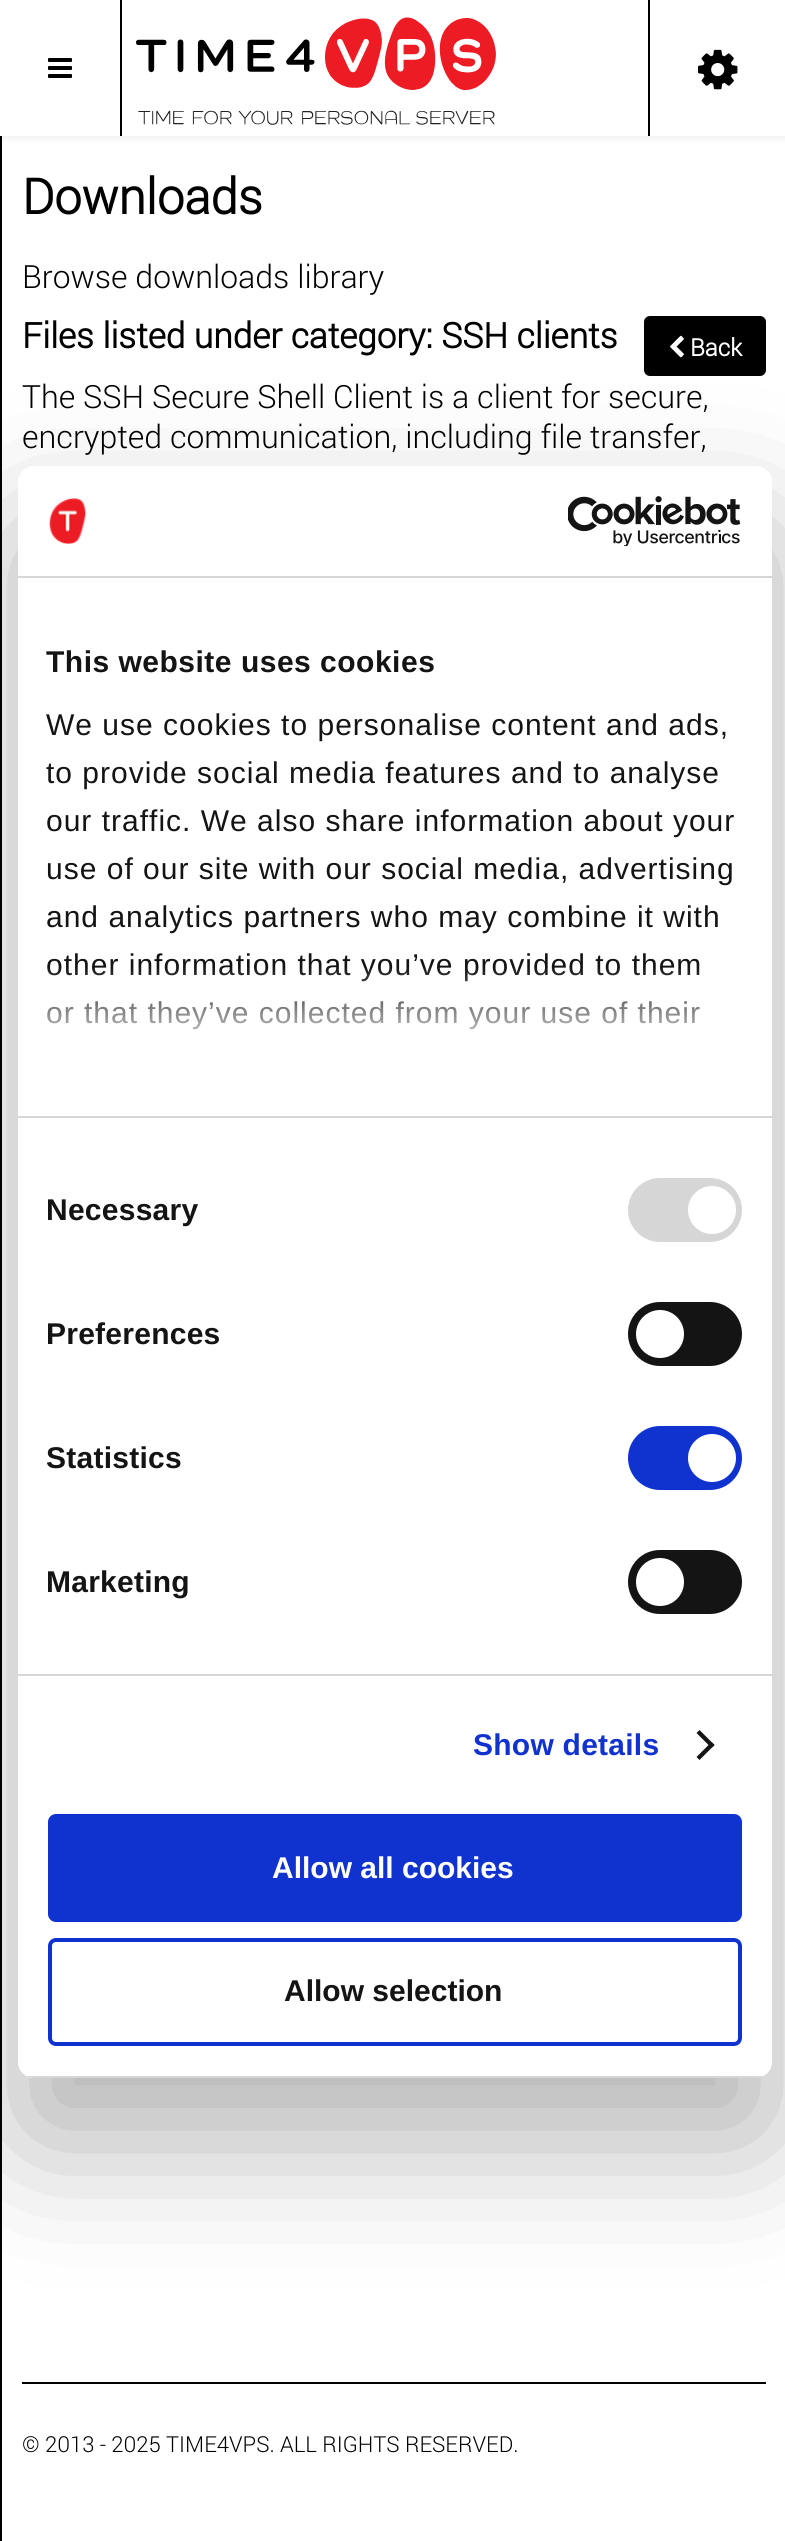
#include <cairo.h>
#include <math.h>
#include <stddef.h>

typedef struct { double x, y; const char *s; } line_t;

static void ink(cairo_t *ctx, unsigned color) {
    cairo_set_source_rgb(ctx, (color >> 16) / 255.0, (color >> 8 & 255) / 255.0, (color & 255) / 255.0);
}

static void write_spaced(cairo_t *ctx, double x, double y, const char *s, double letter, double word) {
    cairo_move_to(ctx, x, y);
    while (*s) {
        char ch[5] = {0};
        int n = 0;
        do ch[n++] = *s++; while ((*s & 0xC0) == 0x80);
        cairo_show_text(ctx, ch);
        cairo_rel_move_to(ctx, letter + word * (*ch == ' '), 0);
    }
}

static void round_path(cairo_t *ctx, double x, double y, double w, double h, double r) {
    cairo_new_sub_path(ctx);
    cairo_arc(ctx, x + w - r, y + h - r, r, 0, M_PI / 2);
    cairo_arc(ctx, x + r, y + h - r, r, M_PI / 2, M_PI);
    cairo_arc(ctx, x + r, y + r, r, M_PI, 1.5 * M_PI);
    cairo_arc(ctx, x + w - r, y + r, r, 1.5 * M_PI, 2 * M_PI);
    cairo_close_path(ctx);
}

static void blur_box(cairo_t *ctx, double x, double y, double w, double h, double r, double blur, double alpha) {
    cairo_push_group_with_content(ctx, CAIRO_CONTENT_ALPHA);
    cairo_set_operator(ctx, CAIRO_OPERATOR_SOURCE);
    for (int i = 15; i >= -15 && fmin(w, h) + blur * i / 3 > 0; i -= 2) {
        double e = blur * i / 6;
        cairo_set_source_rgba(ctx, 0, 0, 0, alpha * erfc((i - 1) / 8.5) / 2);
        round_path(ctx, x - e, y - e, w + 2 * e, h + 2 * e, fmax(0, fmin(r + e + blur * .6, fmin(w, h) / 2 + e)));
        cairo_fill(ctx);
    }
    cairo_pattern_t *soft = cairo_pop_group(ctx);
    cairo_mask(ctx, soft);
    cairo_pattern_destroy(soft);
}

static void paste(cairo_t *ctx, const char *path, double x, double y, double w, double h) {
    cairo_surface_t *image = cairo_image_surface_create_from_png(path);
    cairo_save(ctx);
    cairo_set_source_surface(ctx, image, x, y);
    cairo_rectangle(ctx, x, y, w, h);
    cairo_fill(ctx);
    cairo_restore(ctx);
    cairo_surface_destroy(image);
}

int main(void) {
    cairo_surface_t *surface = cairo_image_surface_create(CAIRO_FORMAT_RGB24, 785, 2541);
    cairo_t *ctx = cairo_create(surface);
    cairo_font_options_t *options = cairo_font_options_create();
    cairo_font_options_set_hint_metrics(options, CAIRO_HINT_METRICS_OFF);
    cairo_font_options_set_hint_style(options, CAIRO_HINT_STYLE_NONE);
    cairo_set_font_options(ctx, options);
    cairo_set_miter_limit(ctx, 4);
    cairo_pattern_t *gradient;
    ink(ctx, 0xFFFFFF);
    cairo_paint(ctx);
    ink(ctx, 0x000000);
    cairo_rectangle(ctx, 0, 136, 2, 2405);
    cairo_fill(ctx);
    ink(ctx, 0x000000);
    blur_box(ctx, 0, 2, 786, 136, 0, 4, 0.07);
    ink(ctx, 0xFFFFFF);
    cairo_rectangle(ctx, 0, 0, 785, 136);
    cairo_fill(ctx);
    ink(ctx, 0x000000);
    cairo_rectangle(ctx, 120, 0, 2, 136);
    cairo_fill(ctx);
    paste(ctx, "media/1.png", 48, 58, 24, 20);
    paste(ctx, "media/2.png", 136, 17, 360, 108);
    cairo_rectangle(ctx, 648, 0, 2, 136);
    cairo_fill(ctx);
    paste(ctx, "media/3.png", 698, 49, 40, 41);
    cairo_select_font_face(ctx, "Roboto", CAIRO_FONT_SLANT_NORMAL, CAIRO_FONT_WEIGHT_BOLD);
    cairo_set_font_size(ctx, 49);
    cairo_move_to(ctx, 22, 214);
    cairo_show_text(ctx, "Downloads");
    cairo_select_font_face(ctx, "Roboto Light", CAIRO_FONT_SLANT_NORMAL, CAIRO_FONT_WEIGHT_NORMAL);
    cairo_set_font_size(ctx, 32);
    cairo_move_to(ctx, 22, 288);
    cairo_show_text(ctx, "Browse downloads library");
    cairo_select_font_face(ctx, "Roboto", CAIRO_FONT_SLANT_NORMAL, CAIRO_FONT_WEIGHT_BOLD);
    cairo_set_font_size(ctx, 35);
    cairo_move_to(ctx, 22, 348);
    cairo_show_text(ctx, "Files listed under category: SSH clients");
    round_path(ctx, 644, 316, 122, 60, 6);
    cairo_fill(ctx);
    paste(ctx, "media/4.png", 670, 335, 14, 23);
    cairo_set_font_size(ctx, 24);
    ink(ctx, 0xFFFFFF);
    cairo_move_to(ctx, 690, 356);
    cairo_show_text(ctx, "Back");
    cairo_select_font_face(ctx, "Roboto Light", CAIRO_FONT_SLANT_NORMAL, CAIRO_FONT_WEIGHT_NORMAL);
    cairo_set_font_size(ctx, 32);
    ink(ctx, 0x000000);
    cairo_move_to(ctx, 22, 408);
    cairo_show_text(ctx, "The SSH Secure Shell Client is a client for secure,");
    cairo_move_to(ctx, 22, 448);
    cairo_show_text(ctx, "encrypted communication, including file transfer,");
    cairo_rectangle(ctx, 22, 2382, 744, 2);
    cairo_fill(ctx);
    cairo_set_font_size(ctx, 22);
    cairo_move_to(ctx, 22, 2452);
    cairo_show_text(ctx, "© 2013 - 2025 TIME4VPS. ALL RIGHTS RESERVED.");
    ink(ctx, 0x000000);
    blur_box(ctx, 18, 530, 754, 1612, 16, 68, 0.3);
    ink(ctx, 0xFFFFFF);
    round_path(ctx, 18, 466, 754, 1612, 16);
    cairo_fill(ctx);
    ink(ctx, 0xD6D6D6);
    cairo_rectangle(ctx, 18, 576, 754, 2);
    cairo_fill(ctx);
    paste(ctx, "media/5.png", 49, 498, 38, 46);
    paste(ctx, "media/6.png", 568, 496, 173, 50);
    cairo_rectangle(ctx, 18, 1116, 754, 2);
    cairo_fill(ctx);
    cairo_select_font_face(ctx, "Liberation Sans", CAIRO_FONT_SLANT_NORMAL, CAIRO_FONT_WEIGHT_BOLD);
    cairo_set_font_size(ctx, 30);
    ink(ctx, 0x141414);
    write_spaced(ctx, 46, 672, "This website uses cookies", 0.5, 0);
    cairo_select_font_face(ctx, "Liberation Sans", CAIRO_FONT_SLANT_NORMAL, CAIRO_FONT_WEIGHT_NORMAL);
    {
        static const line_t items[] = {
            {46, 735, "We use cookies to personalise content and ads,"},
            {46, 783, "to provide social media features and to analyse"},
            {46, 831, "our traffic. We also share information about your"},
            {46, 879, "use of our site with our social media, advertising"},
            {46, 927, "and analytics partners who may combine it with"},
            {46, 975, "other information that you’ve provided to them"},
            {46, 1023, "or that they’ve collected from your use of their"},
        };
        for (size_t i = 0; i < sizeof items / sizeof *items; i++) {
            write_spaced(ctx, items[i].x, items[i].y, items[i].s, 1, 0);
        }
    }
    gradient = cairo_pattern_create_linear(381, 1116, 381, 966);
    cairo_pattern_add_color_stop_rgba(gradient, 0, 1, 1, 1, 1);
    cairo_pattern_add_color_stop_rgba(gradient, 0.5, 1, 1, 1, 0.8);
    cairo_pattern_add_color_stop_rgba(gradient, 1, 1, 1, 1, 0);
    cairo_set_source(ctx, gradient);
    cairo_pattern_destroy(gradient);
    cairo_rectangle(ctx, 47, 968, 653, 62);
    cairo_fill(ctx);
    ink(ctx, 0xD6D6D6);
    cairo_rectangle(ctx, 18, 1674, 754, 2);
    cairo_fill(ctx);
    cairo_select_font_face(ctx, "Liberation Sans", CAIRO_FONT_SLANT_NORMAL, CAIRO_FONT_WEIGHT_BOLD);
    ink(ctx, 0x141414);
    write_spaced(ctx, 46, 1220, "Necessary", 0.25, 0);
    ink(ctx, 0xD6D6D6);
    round_path(ctx, 628, 1178, 114, 64, 32);
    cairo_fill(ctx);
    ink(ctx, 0xFFFFFF);
    cairo_arc(ctx, 712, 1210, 24, 0, 2 * M_PI);
    cairo_fill(ctx);
    ink(ctx, 0x141414);
    write_spaced(ctx, 46, 1344, "Preferences", 0.25, 0);
    round_path(ctx, 628, 1302, 114, 64, 32);
    cairo_fill(ctx);
    ink(ctx, 0xFFFFFF);
    cairo_arc(ctx, 660, 1334, 24, 0, 2 * M_PI);
    cairo_fill(ctx);
    ink(ctx, 0x141414);
    write_spaced(ctx, 46, 1468, "Statistics", 0.25, 0);
    ink(ctx, 0x1032CF);
    round_path(ctx, 628, 1426, 114, 64, 32);
    cairo_fill(ctx);
    ink(ctx, 0xFFFFFF);
    cairo_arc(ctx, 712, 1458, 24, 0, 2 * M_PI);
    cairo_fill(ctx);
    ink(ctx, 0x141414);
    write_spaced(ctx, 46, 1592, "Marketing", 0.25, 0);
    round_path(ctx, 628, 1550, 114, 64, 32);
    cairo_fill(ctx);
    ink(ctx, 0xFFFFFF);
    cairo_arc(ctx, 660, 1582, 24, 0, 2 * M_PI);
    cairo_fill(ctx);
    ink(ctx, 0x1032CF);
    write_spaced(ctx, 473, 1755, "Show details", 0.25, 0);
    ink(ctx, 0x141414);
    cairo_new_path(ctx);
    cairo_move_to(ctx, 699.5, 1730);
    cairo_line_to(ctx, 714.5, 1745);
    cairo_line_to(ctx, 711.5, 1748);
    cairo_line_to(ctx, 696.5, 1733);
    cairo_close_path(ctx);
    cairo_fill(ctx);
    cairo_new_path(ctx);
    cairo_move_to(ctx, 711.5, 1742);
    cairo_line_to(ctx, 714.5, 1745);
    cairo_line_to(ctx, 699.5, 1760);
    cairo_line_to(ctx, 696.5, 1757);
    cairo_close_path(ctx);
    cairo_fill(ctx);
    cairo_save(ctx);
    round_path(ctx, 18, 466, 754, 1612, 16);
    cairo_clip(ctx);
    ink(ctx, 0xD6D6D6);
    cairo_rectangle(ctx, 18, 2076, 754, 2);
    cairo_fill(ctx);
    cairo_restore(ctx);
    ink(ctx, 0x1032CF);
    round_path(ctx, 50, 1816, 690, 104, 6);
    cairo_fill_preserve(ctx);
    cairo_set_line_width(ctx, 4);
    cairo_stroke(ctx);
    ink(ctx, 0xFFFFFF);
    cairo_move_to(ctx, 272, 1878);
    cairo_show_text(ctx, "Allow all cookies");
    round_path(ctx, 50, 1940, 690, 104, 6);
    ink(ctx, 0x1032CF);
    cairo_stroke(ctx);
    ink(ctx, 0x141414);
    cairo_move_to(ctx, 284, 2001);
    cairo_show_text(ctx, "Allow selection");
    cairo_surface_write_to_png(surface, "image.png");
    cairo_font_options_destroy(options);
    cairo_destroy(ctx);
    cairo_surface_destroy(surface);
    return 0;
}
